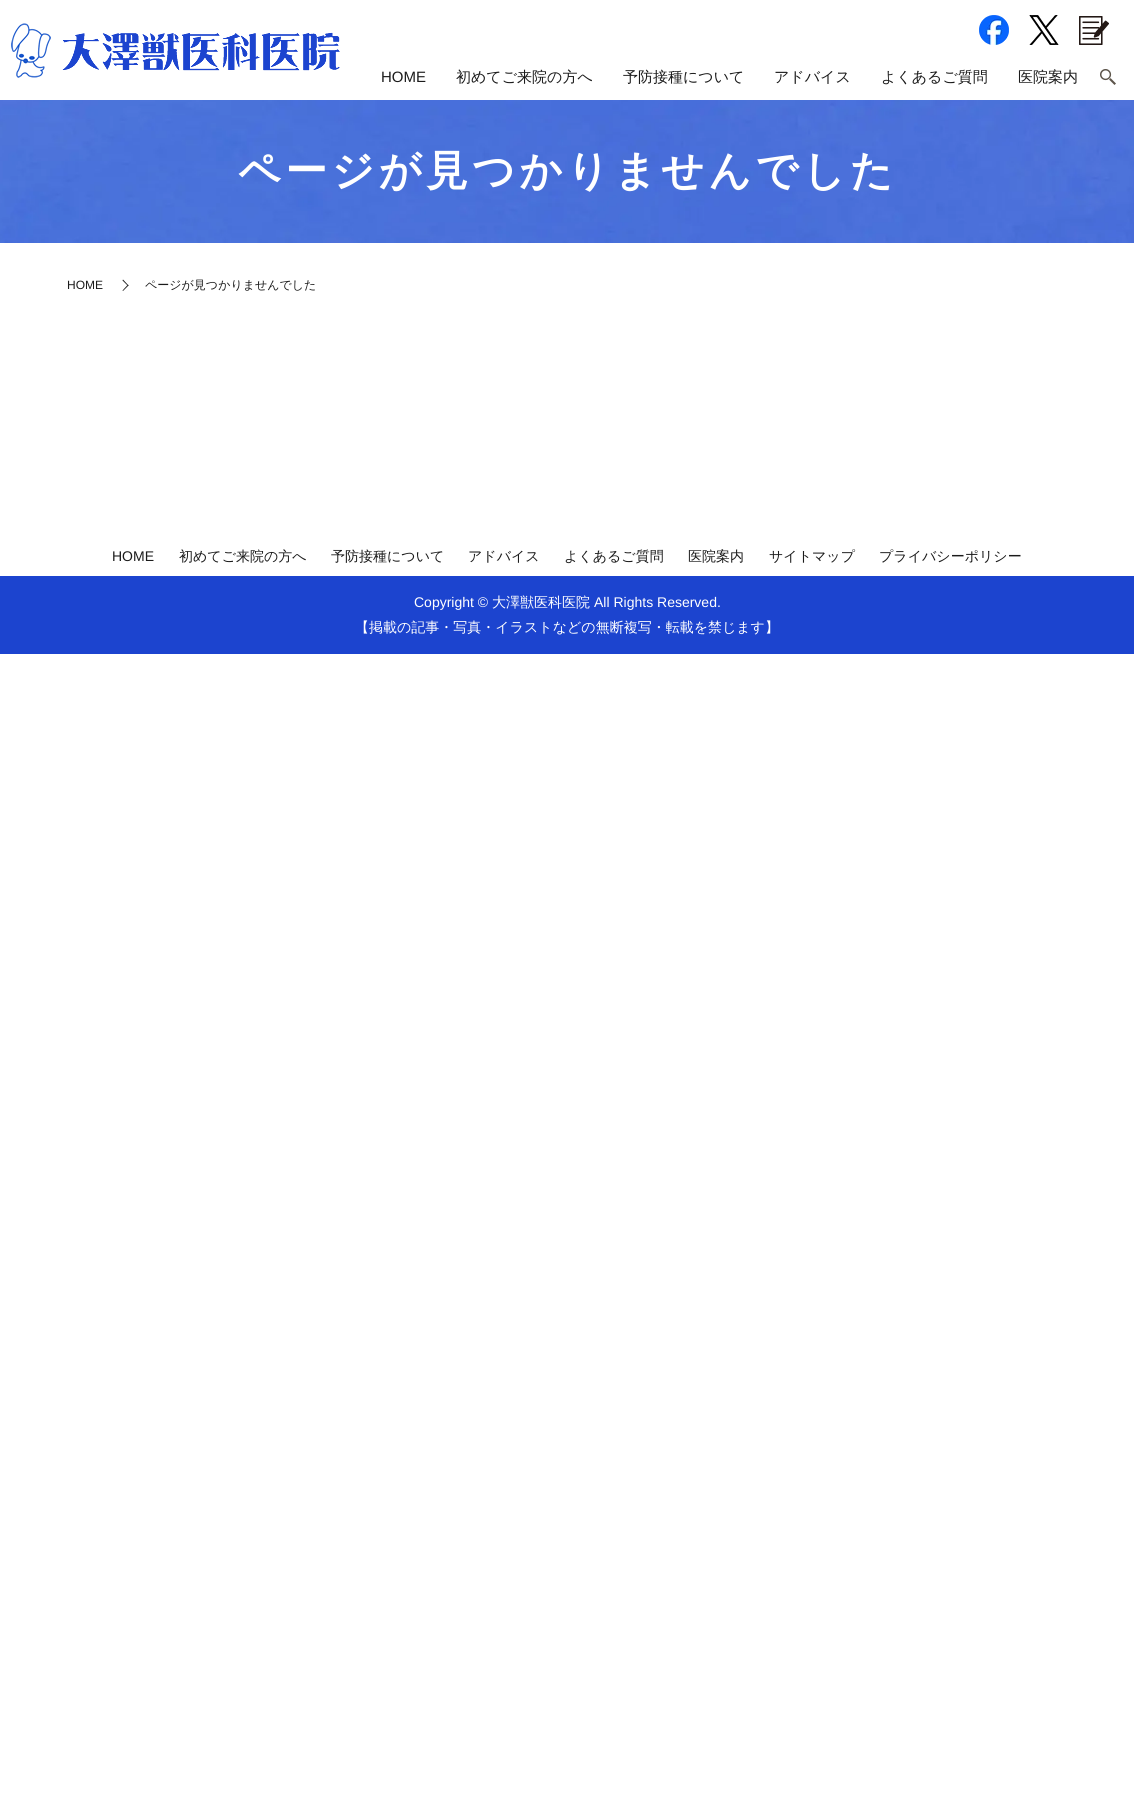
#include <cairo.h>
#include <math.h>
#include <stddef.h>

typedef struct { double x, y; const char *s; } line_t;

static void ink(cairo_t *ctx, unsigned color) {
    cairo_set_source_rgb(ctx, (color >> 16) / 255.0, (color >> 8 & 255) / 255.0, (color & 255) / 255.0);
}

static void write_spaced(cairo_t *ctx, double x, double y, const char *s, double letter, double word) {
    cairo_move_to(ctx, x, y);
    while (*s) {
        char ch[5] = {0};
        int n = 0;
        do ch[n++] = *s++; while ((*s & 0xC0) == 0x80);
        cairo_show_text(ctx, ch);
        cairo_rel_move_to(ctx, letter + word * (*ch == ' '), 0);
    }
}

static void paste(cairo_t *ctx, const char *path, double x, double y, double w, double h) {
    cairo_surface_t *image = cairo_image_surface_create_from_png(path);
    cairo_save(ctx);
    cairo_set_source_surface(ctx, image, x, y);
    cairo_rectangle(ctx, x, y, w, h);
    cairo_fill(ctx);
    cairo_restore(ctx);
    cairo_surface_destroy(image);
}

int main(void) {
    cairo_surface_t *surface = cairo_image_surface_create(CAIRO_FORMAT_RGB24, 1134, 1818);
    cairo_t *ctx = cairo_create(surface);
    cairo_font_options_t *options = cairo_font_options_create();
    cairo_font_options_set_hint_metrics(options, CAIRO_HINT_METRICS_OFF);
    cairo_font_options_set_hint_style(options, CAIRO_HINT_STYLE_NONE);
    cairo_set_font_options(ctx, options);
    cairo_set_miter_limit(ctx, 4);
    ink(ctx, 0xFFFFFF);
    cairo_paint(ctx);
    paste(ctx, "media/1.png", 11, 23, 329, 55);
    paste(ctx, "media/2.png", 979, 15, 30, 30);
    paste(ctx, "media/3.png", 1029, 15, 30, 30);
    paste(ctx, "media/4.png", 1079, 16, 30, 29);
    cairo_select_font_face(ctx, "Liberation Sans", CAIRO_FONT_SLANT_NORMAL, CAIRO_FONT_WEIGHT_NORMAL);
    cairo_set_font_size(ctx, 15);
    ink(ctx, 0x1B1B1B);
    cairo_move_to(ctx, 381, 82);
    cairo_show_text(ctx, "HOME");
    cairo_select_font_face(ctx, "WenQuanYi Zen Hei Medium", CAIRO_FONT_SLANT_NORMAL, CAIRO_FONT_WEIGHT_NORMAL);
    {
        static const line_t items[] = {
            {456, 82, "初めてご来院の方へ"},
            {623, 82, "予防接種について"},
            {774, 82, "アドバイス"},
            {881, 82, "よくあるご質問"},
            {1018, 82, "医院案内"},
        };
        for (size_t i = 0; i < sizeof items / sizeof *items; i++) {
            cairo_move_to(ctx, items[i].x, items[i].y);
            cairo_show_text(ctx, items[i].s);
        }
    }
    paste(ctx, "media/5.png", 1100, 69, 16, 16);
    paste(ctx, "media/6.png", 0, 100, 1134, 143);
    cairo_select_font_face(ctx, "WenQuanYi Zen Hei", CAIRO_FONT_SLANT_NORMAL, CAIRO_FONT_WEIGHT_BOLD);
    cairo_set_font_size(ctx, 42);
    ink(ctx, 0xFFFFFF);
    write_spaced(ctx, 238, 185, "ページが見つかりませんでした", 4.25, 0);
    cairo_select_font_face(ctx, "Liberation Sans", CAIRO_FONT_SLANT_NORMAL, CAIRO_FONT_WEIGHT_NORMAL);
    cairo_set_font_size(ctx, 12);
    ink(ctx, 0x1B1B1B);
    cairo_move_to(ctx, 67, 289);
    cairo_show_text(ctx, "HOME");
    cairo_new_path(ctx);
    cairo_move_to(ctx, 123, 279.5);
    cairo_line_to(ctx, 128.5, 285.5);
    cairo_line_to(ctx, 128, 286);
    cairo_line_to(ctx, 122.5, 280.5);
    cairo_close_path(ctx);
    cairo_fill(ctx);
    cairo_new_path(ctx);
    cairo_move_to(ctx, 128, 284.5);
    cairo_line_to(ctx, 128.5, 285.5);
    cairo_line_to(ctx, 123, 291);
    cairo_line_to(ctx, 122.5, 290.5);
    cairo_close_path(ctx);
    cairo_fill(ctx);
    cairo_select_font_face(ctx, "WenQuanYi Zen Hei Medium", CAIRO_FONT_SLANT_NORMAL, CAIRO_FONT_WEIGHT_NORMAL);
    cairo_move_to(ctx, 145, 289);
    cairo_show_text(ctx, "ページが見つかりませんでした");
    cairo_select_font_face(ctx, "Liberation Sans", CAIRO_FONT_SLANT_NORMAL, CAIRO_FONT_WEIGHT_NORMAL);
    cairo_set_font_size(ctx, 14);
    cairo_move_to(ctx, 112, 561);
    cairo_show_text(ctx, "HOME");
    cairo_select_font_face(ctx, "WenQuanYi Zen Hei Medium", CAIRO_FONT_SLANT_NORMAL, CAIRO_FONT_WEIGHT_NORMAL);
    {
        static const line_t items[] = {
            {179, 561, "初めてご来院の方へ"},
            {331, 561, "予防接種について"},
            {468, 561, "アドバイス"},
            {564, 561, "よくあるご質問"},
            {688, 561, "医院案内"},
            {769, 561, "サイトマップ"},
            {879, 561, "プライバシーポリシー"},
        };
        for (size_t i = 0; i < sizeof items / sizeof *items; i++) {
            cairo_move_to(ctx, items[i].x, items[i].y);
            cairo_show_text(ctx, items[i].s);
        }
    }
    ink(ctx, 0x1C44CF);
    cairo_rectangle(ctx, 0, 576, 1134, 78);
    cairo_fill(ctx);
    cairo_select_font_face(ctx, "Liberation Sans", CAIRO_FONT_SLANT_NORMAL, CAIRO_FONT_WEIGHT_NORMAL);
    ink(ctx, 0xFFFFFF);
    cairo_move_to(ctx, 414, 607);
    cairo_show_text(ctx, "Copyright ©");
    cairo_select_font_face(ctx, "WenQuanYi Zen Hei Medium", CAIRO_FONT_SLANT_NORMAL, CAIRO_FONT_WEIGHT_NORMAL);
    cairo_move_to(ctx, 492, 607);
    cairo_show_text(ctx, "大澤獣医科医院");
    cairo_select_font_face(ctx, "Liberation Sans", CAIRO_FONT_SLANT_NORMAL, CAIRO_FONT_WEIGHT_NORMAL);
    cairo_move_to(ctx, 594, 607);
    cairo_show_text(ctx, "All Rights Reserved.");
    cairo_select_font_face(ctx, "WenQuanYi Zen Hei Medium", CAIRO_FONT_SLANT_NORMAL, CAIRO_FONT_WEIGHT_NORMAL);
    cairo_move_to(ctx, 355, 632);
    cairo_show_text(ctx, "【掲載の記事・写真・イラストなどの無断複写・転載を禁じます】");
    cairo_surface_write_to_png(surface, "image.png");
    cairo_font_options_destroy(options);
    cairo_destroy(ctx);
    cairo_surface_destroy(surface);
    return 0;
}
